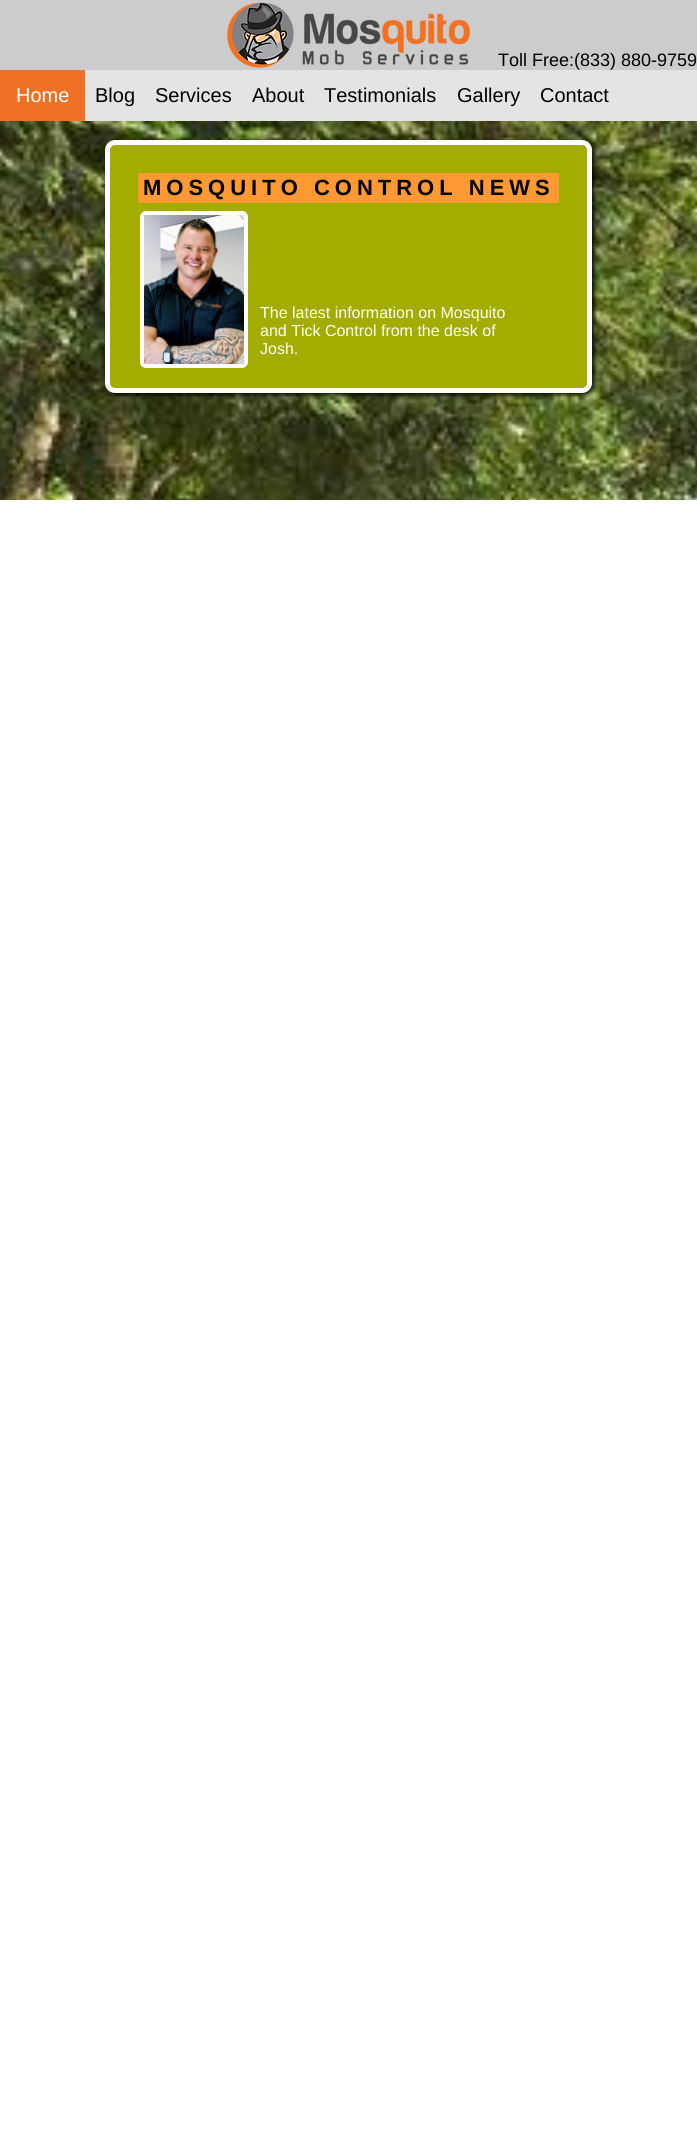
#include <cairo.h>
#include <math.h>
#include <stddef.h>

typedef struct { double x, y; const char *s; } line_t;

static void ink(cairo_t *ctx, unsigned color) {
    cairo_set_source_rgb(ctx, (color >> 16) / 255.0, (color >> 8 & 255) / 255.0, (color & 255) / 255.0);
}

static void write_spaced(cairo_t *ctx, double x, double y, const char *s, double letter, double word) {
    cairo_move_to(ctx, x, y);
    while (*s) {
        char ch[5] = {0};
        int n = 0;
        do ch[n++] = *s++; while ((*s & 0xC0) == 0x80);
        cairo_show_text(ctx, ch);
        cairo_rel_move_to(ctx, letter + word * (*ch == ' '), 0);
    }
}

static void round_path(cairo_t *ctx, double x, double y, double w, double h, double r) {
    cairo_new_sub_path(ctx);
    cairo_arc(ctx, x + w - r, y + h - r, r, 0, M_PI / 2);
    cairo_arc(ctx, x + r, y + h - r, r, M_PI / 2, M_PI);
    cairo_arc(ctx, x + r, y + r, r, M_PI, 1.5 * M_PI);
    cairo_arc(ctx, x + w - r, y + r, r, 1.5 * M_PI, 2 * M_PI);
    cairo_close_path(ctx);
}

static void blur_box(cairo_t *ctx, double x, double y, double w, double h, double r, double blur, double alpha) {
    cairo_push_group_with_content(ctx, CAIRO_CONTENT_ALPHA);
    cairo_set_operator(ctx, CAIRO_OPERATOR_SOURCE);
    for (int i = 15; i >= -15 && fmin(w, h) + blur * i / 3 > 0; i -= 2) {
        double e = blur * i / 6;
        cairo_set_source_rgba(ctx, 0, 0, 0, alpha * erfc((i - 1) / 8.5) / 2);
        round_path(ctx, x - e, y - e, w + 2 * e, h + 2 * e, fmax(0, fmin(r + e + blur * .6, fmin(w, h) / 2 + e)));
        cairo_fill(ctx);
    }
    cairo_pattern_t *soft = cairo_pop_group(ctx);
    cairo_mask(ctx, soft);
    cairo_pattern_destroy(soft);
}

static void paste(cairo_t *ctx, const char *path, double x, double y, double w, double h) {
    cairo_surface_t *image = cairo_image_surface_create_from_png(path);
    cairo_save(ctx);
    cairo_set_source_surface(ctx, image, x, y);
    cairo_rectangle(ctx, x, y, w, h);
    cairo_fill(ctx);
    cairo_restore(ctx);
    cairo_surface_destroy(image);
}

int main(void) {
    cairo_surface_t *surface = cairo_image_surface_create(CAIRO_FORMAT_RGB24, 697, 2132);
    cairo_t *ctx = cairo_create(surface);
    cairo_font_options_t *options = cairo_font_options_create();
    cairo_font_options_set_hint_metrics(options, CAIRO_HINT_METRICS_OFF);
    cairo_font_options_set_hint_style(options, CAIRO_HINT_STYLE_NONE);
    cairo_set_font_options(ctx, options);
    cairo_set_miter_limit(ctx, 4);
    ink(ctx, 0xFFFFFF);
    cairo_paint(ctx);
    ink(ctx, 0xCCCCCC);
    cairo_rectangle(ctx, 0, 0, 697, 70);
    cairo_fill(ctx);
    paste(ctx, "media/1.png", 227, 2, 243, 66);
    cairo_select_font_face(ctx, "Liberation Sans", CAIRO_FONT_SLANT_NORMAL, CAIRO_FONT_WEIGHT_NORMAL);
    cairo_set_font_size(ctx, 18);
    ink(ctx, 0x000000);
    cairo_move_to(ctx, 498, 66);
    cairo_show_text(ctx, "Toll Free:(833) 880-9759");
    ink(ctx, 0xE4E4E4);
    cairo_rectangle(ctx, 85, 70, 612, 51);
    cairo_fill(ctx);
    ink(ctx, 0xF17124);
    cairo_rectangle(ctx, 0, 70, 85, 51);
    cairo_fill(ctx);
    cairo_set_font_size(ctx, 20);
    ink(ctx, 0xFFFFFF);
    cairo_move_to(ctx, 16, 102);
    cairo_show_text(ctx, "Home");
    ink(ctx, 0x000000);
    {
        static const line_t items[] = {
            {95, 102, "Blog"},
            {155, 102, "Services"},
            {252, 102, "About"},
            {324, 102, "Testimonials"},
            {457, 102, "Gallery"},
            {540, 102, "Contact"},
        };
        for (size_t i = 0; i < sizeof items / sizeof *items; i++) {
            cairo_move_to(ctx, items[i].x, items[i].y);
            cairo_show_text(ctx, items[i].s);
        }
    }
    paste(ctx, "media/2.png", 0, 121, 697, 379);
    ink(ctx, 0x000000);
    blur_box(ctx, 107, 142, 487, 253, 10, 2.5, 1);
    ink(ctx, 0xA2AD00);
    round_path(ctx, 107.5, 142.5, 482, 248, 7.5);
    cairo_fill_preserve(ctx);
    ink(ctx, 0xFFFFFF);
    cairo_set_line_width(ctx, 5);
    cairo_stroke(ctx);
    ink(ctx, 0xFF9933);
    cairo_rectangle(ctx, 138, 173, 421, 30);
    cairo_fill(ctx);
    cairo_select_font_face(ctx, "Liberation Sans", CAIRO_FONT_SLANT_NORMAL, CAIRO_FONT_WEIGHT_BOLD);
    cairo_set_font_size(ctx, 22);
    ink(ctx, 0x000000);
    write_spaced(ctx, 143, 195, "MOSQUITO CONTROL NEWS", 5, 0);
    round_path(ctx, 142, 213, 104, 153, 4);
    ink(ctx, 0xFFFFFF);
    cairo_set_line_width(ctx, 4);
    cairo_stroke(ctx);
    paste(ctx, "media/3.png", 144, 215, 100, 149);
    cairo_select_font_face(ctx, "Liberation Sans", CAIRO_FONT_SLANT_NORMAL, CAIRO_FONT_WEIGHT_NORMAL);
    cairo_set_font_size(ctx, 16);
    {
        static const line_t items[] = {
            {260, 318, "The latest information on Mosquito"},
            {260, 336, "and Tick Control from the desk of"},
            {260, 354, "Josh."},
        };
        for (size_t i = 0; i < sizeof items / sizeof *items; i++) {
            cairo_move_to(ctx, items[i].x, items[i].y);
            cairo_show_text(ctx, items[i].s);
        }
    }
    cairo_surface_write_to_png(surface, "image.png");
    cairo_font_options_destroy(options);
    cairo_destroy(ctx);
    cairo_surface_destroy(surface);
    return 0;
}
